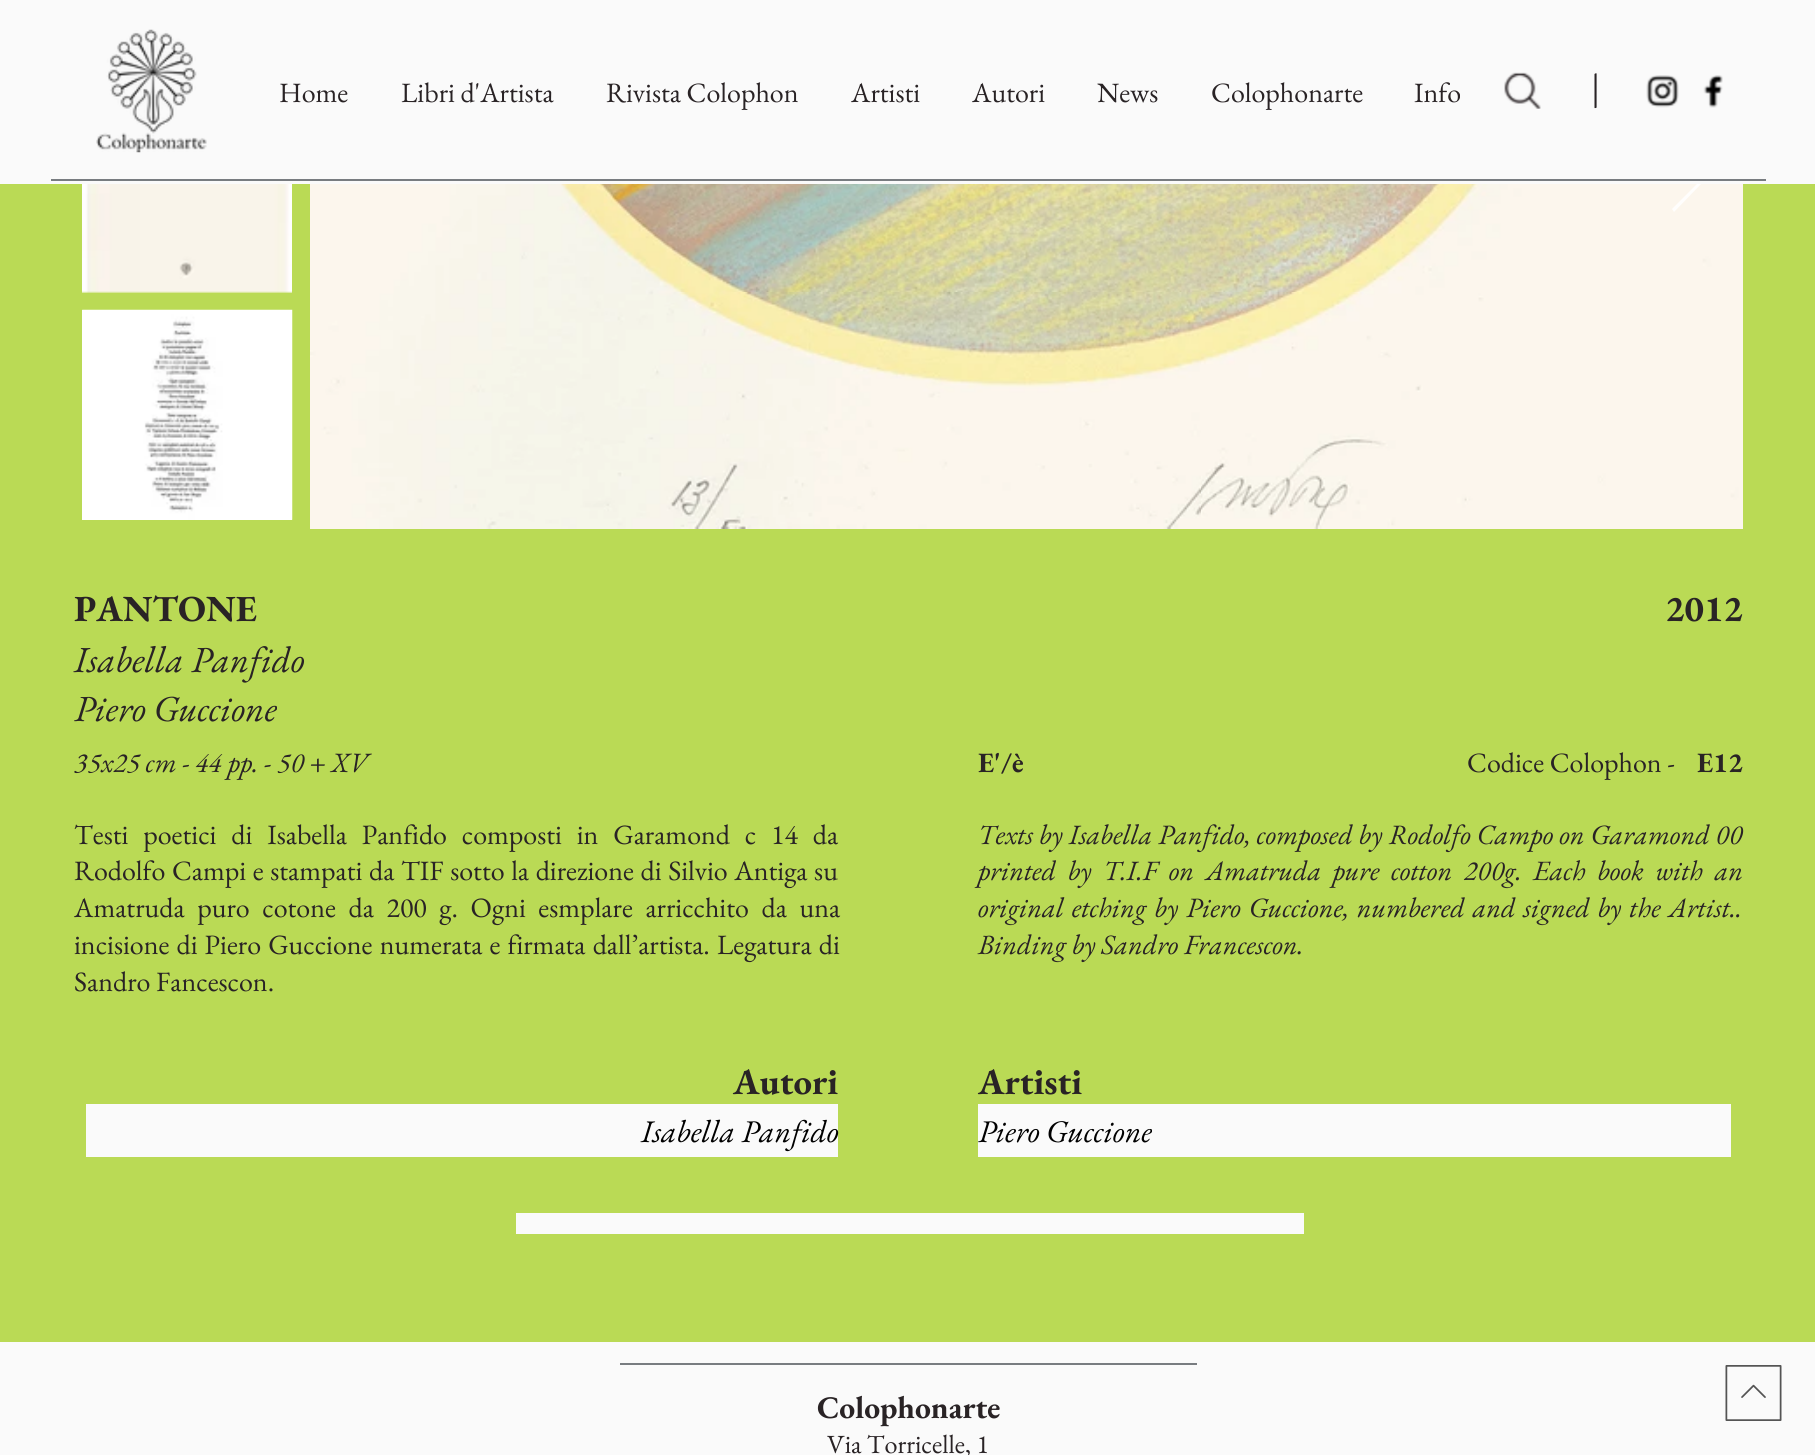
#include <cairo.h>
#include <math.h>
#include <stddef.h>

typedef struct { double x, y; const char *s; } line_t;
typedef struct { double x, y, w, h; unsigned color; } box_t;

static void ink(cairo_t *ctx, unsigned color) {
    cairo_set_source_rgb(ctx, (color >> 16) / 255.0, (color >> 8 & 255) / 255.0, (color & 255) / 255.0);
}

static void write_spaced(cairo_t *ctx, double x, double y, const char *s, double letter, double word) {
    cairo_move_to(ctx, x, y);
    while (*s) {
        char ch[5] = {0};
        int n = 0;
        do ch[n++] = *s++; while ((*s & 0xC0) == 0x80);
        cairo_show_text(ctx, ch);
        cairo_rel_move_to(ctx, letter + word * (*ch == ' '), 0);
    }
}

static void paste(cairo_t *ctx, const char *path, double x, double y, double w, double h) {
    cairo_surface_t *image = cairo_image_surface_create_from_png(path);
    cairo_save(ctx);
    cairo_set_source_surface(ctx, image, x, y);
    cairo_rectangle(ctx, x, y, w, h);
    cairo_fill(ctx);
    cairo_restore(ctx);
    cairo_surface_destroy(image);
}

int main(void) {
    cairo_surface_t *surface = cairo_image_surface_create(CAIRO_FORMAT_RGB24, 1815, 1455);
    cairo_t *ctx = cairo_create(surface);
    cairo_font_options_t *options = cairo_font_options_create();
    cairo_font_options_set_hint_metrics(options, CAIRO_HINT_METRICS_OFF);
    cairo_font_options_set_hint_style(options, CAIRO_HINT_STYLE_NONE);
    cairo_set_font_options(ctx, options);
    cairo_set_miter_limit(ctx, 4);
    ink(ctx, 0xBADA55);
    cairo_paint(ctx);
    paste(ctx, "media/7.png", 310, 184, 1433, 345);
    ink(ctx, 0xFFFEFD);
    cairo_new_path(ctx);
    cairo_move_to(ctx, 1672, 159);
    cairo_line_to(ctx, 1674, 157);
    cairo_line_to(ctx, 1701, 184);
    cairo_line_to(ctx, 1674, 212);
    cairo_line_to(ctx, 1672, 209);
    cairo_line_to(ctx, 1697, 184);
    cairo_close_path(ctx);
    cairo_fill(ctx);
    ink(ctx, 0xFAFAFA);
    cairo_rectangle(ctx, 0, 0, 1815, 184);
    cairo_fill(ctx);
    paste(ctx, "media/1.png", 96, 29, 111, 124);
    cairo_select_font_face(ctx, "EB Garamond", CAIRO_FONT_SLANT_NORMAL, CAIRO_FONT_WEIGHT_NORMAL);
    cairo_set_font_size(ctx, 28);
    ink(ctx, 0x292325);
    {
        static const line_t items[] = {
            {279, 102, "Home"},
            {401, 102, "Libri d'Artista"},
            {606, 102, "Rivista Colophon"},
            {851, 102, "Artisti"},
            {972, 102, "Autori"},
            {1097, 102, "News"},
            {1211, 102, "Colophonarte"},
            {1414, 102, "Info"},
        };
        for (size_t i = 0; i < sizeof items / sizeof *items; i++) {
            cairo_move_to(ctx, items[i].x, items[i].y);
            cairo_show_text(ctx, items[i].s);
        }
    }
    paste(ctx, "media/2.png", 1504, 72, 37, 37);
    cairo_set_font_size(ctx, 35);
    cairo_move_to(ctx, 1591, 98);
    cairo_show_text(ctx, "|");
    paste(ctx, "media/3.png", 1646, 75, 33, 33);
    paste(ctx, "media/4.png", 1703, 75, 20, 33);
    ink(ctx, 0x787C80);
    cairo_rectangle(ctx, 51, 179, 1715, 2);
    cairo_fill(ctx);
    paste(ctx, "media/5.png", 82, 184, 210, 109);
    ink(ctx, 0xFFFFFF);
    cairo_rectangle(ctx, 82, 310, 210, 210);
    cairo_fill(ctx);
    paste(ctx, "media/6.png", 82, 309, 211, 211);
    cairo_select_font_face(ctx, "EB Garamond", CAIRO_FONT_SLANT_NORMAL, CAIRO_FONT_WEIGHT_BOLD);
    cairo_set_font_size(ctx, 36.75);
    ink(ctx, 0x292325);
    cairo_move_to(ctx, 74, 621);
    cairo_show_text(ctx, "PANTONE");
    cairo_move_to(ctx, 1665, 621);
    cairo_show_text(ctx, "2012");
    cairo_select_font_face(ctx, "EB Garamond", CAIRO_FONT_SLANT_ITALIC, CAIRO_FONT_WEIGHT_NORMAL);
    cairo_move_to(ctx, 74, 672);
    cairo_show_text(ctx, "Isabella Panfido");
    cairo_move_to(ctx, 74, 721);
    cairo_show_text(ctx, "Piero Guccione");
    cairo_set_font_size(ctx, 28);
    cairo_move_to(ctx, 74, 772);
    cairo_show_text(ctx, "35x25 cm - 44 pp. - 50 + XV");
    cairo_select_font_face(ctx, "EB Garamond", CAIRO_FONT_SLANT_NORMAL, CAIRO_FONT_WEIGHT_BOLD);
    cairo_move_to(ctx, 978, 772);
    cairo_show_text(ctx, "E'/è");
    cairo_select_font_face(ctx, "EB Garamond", CAIRO_FONT_SLANT_NORMAL, CAIRO_FONT_WEIGHT_NORMAL);
    cairo_move_to(ctx, 1467, 772);
    cairo_show_text(ctx, "Codice Colophon -");
    cairo_select_font_face(ctx, "EB Garamond", CAIRO_FONT_SLANT_NORMAL, CAIRO_FONT_WEIGHT_BOLD);
    cairo_move_to(ctx, 1697, 772);
    cairo_show_text(ctx, "E12");
    cairo_select_font_face(ctx, "EB Garamond", CAIRO_FONT_SLANT_NORMAL, CAIRO_FONT_WEIGHT_NORMAL);
    write_spaced(ctx, 74, 844, "Testi poetici di Isabella Panfido composti in Garamond c 14 da", 0, 9.25);
    write_spaced(ctx, 74, 880, "Rodolfo Campi e stampati da TIF sotto la direzione di Silvio Antiga su", 0, 1);
    write_spaced(ctx, 74, 917, "Amatruda puro cotone da 200 g. Ogni esmplare arricchito da una", 0, 7);
    write_spaced(ctx, 74, 954, "incisione di Piero Guccione numerata e firmata dall’artista. Legatura di", 0, 1.5);
    cairo_move_to(ctx, 74, 991);
    cairo_show_text(ctx, "Sandro Fancescon.");
    cairo_select_font_face(ctx, "EB Garamond", CAIRO_FONT_SLANT_ITALIC, CAIRO_FONT_WEIGHT_NORMAL);
    write_spaced(ctx, 978, 844, "Texts by Isabella Panfido, composed by Rodolfo Campo on Garamond 00", 0, 0.25);
    write_spaced(ctx, 978, 880, "printed by T.I.F on Amatruda pure cotton 200g. Each book with an", 0, 6);
    write_spaced(ctx, 978, 917, "original etching by Piero Guccione, numbered and signed by the Artist..", 0, 2.25);
    cairo_move_to(ctx, 978, 954);
    cairo_show_text(ctx, "Binding by Sandro Francescon.");
    cairo_select_font_face(ctx, "EB Garamond", CAIRO_FONT_SLANT_NORMAL, CAIRO_FONT_WEIGHT_BOLD);
    cairo_set_font_size(ctx, 36.75);
    cairo_move_to(ctx, 733, 1094);
    cairo_show_text(ctx, "Autori");
    cairo_move_to(ctx, 978, 1094);
    cairo_show_text(ctx, "Artisti");
    ink(ctx, 0xFAFAFA);
    cairo_rectangle(ctx, 86, 1104, 752, 53);
    cairo_fill(ctx);
    cairo_select_font_face(ctx, "EB Garamond", CAIRO_FONT_SLANT_ITALIC, CAIRO_FONT_WEIGHT_NORMAL);
    cairo_set_font_size(ctx, 31.5);
    ink(ctx, 0x000000);
    cairo_move_to(ctx, 641, 1142);
    cairo_show_text(ctx, "Isabella Panfido");
    ink(ctx, 0xFAFAFA);
    cairo_rectangle(ctx, 978, 1104, 753, 53);
    cairo_fill(ctx);
    ink(ctx, 0x000000);
    cairo_move_to(ctx, 978, 1142);
    cairo_show_text(ctx, "Piero Guccione");
    {
        static const box_t items[] = {
            {516, 1213, 788, 21, 0xFAFAFA},
            {0, 1342, 1815, 113, 0xFAFAFA},
            {620, 1363, 577, 2, 0x787C80},
        };
        for (size_t i = 0; i < sizeof items / sizeof *items; i++) {
            ink(ctx, items[i].color);
            cairo_rectangle(ctx, items[i].x, items[i].y, items[i].w, items[i].h);
            cairo_fill(ctx);
        }
    }
    cairo_select_font_face(ctx, "EB Garamond", CAIRO_FONT_SLANT_NORMAL, CAIRO_FONT_WEIGHT_BOLD);
    ink(ctx, 0x292325);
    cairo_move_to(ctx, 817, 1418);
    cairo_show_text(ctx, "Colophonarte");
    cairo_select_font_face(ctx, "EB Garamond", CAIRO_FONT_SLANT_NORMAL, CAIRO_FONT_WEIGHT_NORMAL);
    cairo_set_font_size(ctx, 26.25);
    cairo_move_to(ctx, 827, 1453);
    cairo_show_text(ctx, "Via Torricelle, 1");
    paste(ctx, "media/8.png", 1725, 1365, 57, 56);
    cairo_surface_write_to_png(surface, "image.png");
    cairo_font_options_destroy(options);
    cairo_destroy(ctx);
    cairo_surface_destroy(surface);
    return 0;
}
